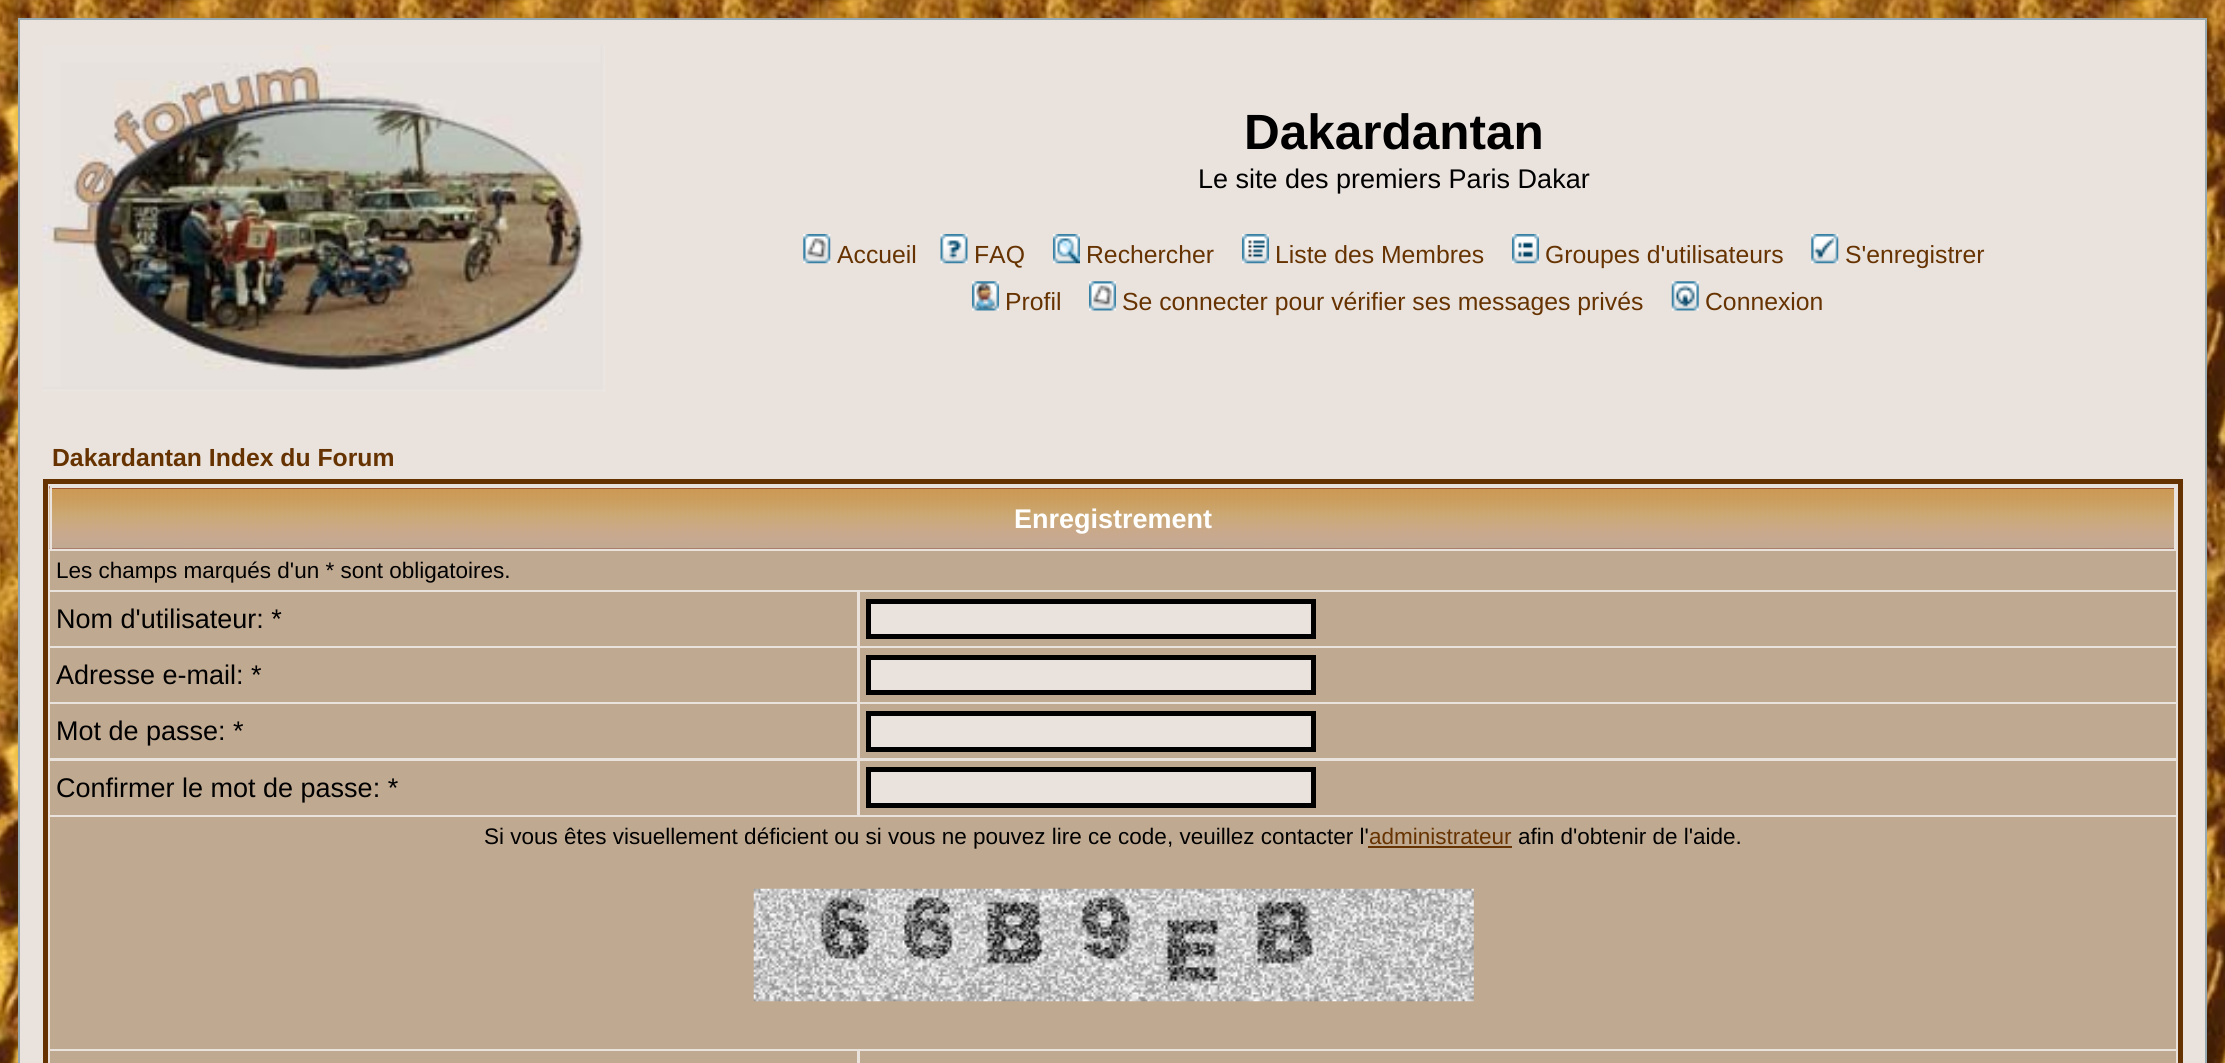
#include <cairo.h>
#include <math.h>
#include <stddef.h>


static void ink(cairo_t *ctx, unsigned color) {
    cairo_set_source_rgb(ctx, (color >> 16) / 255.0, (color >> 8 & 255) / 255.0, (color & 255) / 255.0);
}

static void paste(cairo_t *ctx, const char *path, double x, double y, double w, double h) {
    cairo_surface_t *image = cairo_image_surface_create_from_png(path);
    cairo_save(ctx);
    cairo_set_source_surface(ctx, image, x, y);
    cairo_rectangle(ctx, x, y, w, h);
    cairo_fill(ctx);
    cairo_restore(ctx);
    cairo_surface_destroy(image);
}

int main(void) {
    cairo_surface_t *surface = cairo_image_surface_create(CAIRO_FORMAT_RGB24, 2225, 1063);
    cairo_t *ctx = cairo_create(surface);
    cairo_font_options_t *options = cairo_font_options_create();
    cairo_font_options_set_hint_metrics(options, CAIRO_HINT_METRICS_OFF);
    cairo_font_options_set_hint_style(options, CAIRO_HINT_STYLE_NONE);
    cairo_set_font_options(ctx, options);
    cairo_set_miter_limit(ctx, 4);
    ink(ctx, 0xFFFFFF);
    cairo_paint(ctx);
    paste(ctx, "media/1.png", 0, 0, 2225, 1063);
    ink(ctx, 0xE9E2DD);
    cairo_rectangle(ctx, 19, 19, 2187, 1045);
    cairo_fill_preserve(ctx);
    ink(ctx, 0x98AAB1);
    cairo_stroke(ctx);
    paste(ctx, "media/2.png", 42, 45, 563, 347);
    cairo_select_font_face(ctx, "Liberation Sans", CAIRO_FONT_SLANT_NORMAL, CAIRO_FONT_WEIGHT_BOLD);
    cairo_set_font_size(ctx, 49.5);
    ink(ctx, 0x000000);
    cairo_move_to(ctx, 1244, 149);
    cairo_show_text(ctx, "Dakardantan");
    cairo_select_font_face(ctx, "Liberation Sans", CAIRO_FONT_SLANT_NORMAL, CAIRO_FONT_WEIGHT_NORMAL);
    cairo_set_font_size(ctx, 27);
    cairo_move_to(ctx, 1198, 188);
    cairo_show_text(ctx, "Le site des premiers Paris Dakar");
    paste(ctx, "media/3.png", 803, 234, 28, 30);
    cairo_set_font_size(ctx, 24.75);
    ink(ctx, 0x663300);
    cairo_move_to(ctx, 837, 263);
    cairo_show_text(ctx, "Accueil");
    paste(ctx, "media/4.png", 940, 234, 28, 30);
    cairo_move_to(ctx, 974, 263);
    cairo_show_text(ctx, "FAQ");
    paste(ctx, "media/5.png", 1053, 234, 27, 30);
    cairo_move_to(ctx, 1086, 263);
    cairo_show_text(ctx, "Rechercher");
    paste(ctx, "media/6.png", 1242, 234, 27, 30);
    cairo_move_to(ctx, 1275, 263);
    cairo_show_text(ctx, "Liste des Membres");
    paste(ctx, "media/7.png", 1512, 234, 27, 30);
    cairo_move_to(ctx, 1545, 263);
    cairo_show_text(ctx, "Groupes d'utilisateurs");
    paste(ctx, "media/8.png", 1811, 234, 28, 30);
    cairo_move_to(ctx, 1845, 263);
    cairo_show_text(ctx, "S'enregistrer");
    paste(ctx, "media/9.png", 972, 281, 27, 30);
    cairo_move_to(ctx, 1005, 310);
    cairo_show_text(ctx, "Profil");
    paste(ctx, "media/10.png", 1089, 281, 27, 30);
    cairo_move_to(ctx, 1122, 310);
    cairo_show_text(ctx, "Se connecter pour vérifier ses messages privés");
    paste(ctx, "media/11.png", 1671, 281, 28, 30);
    cairo_move_to(ctx, 1705, 310);
    cairo_show_text(ctx, "Connexion");
    cairo_select_font_face(ctx, "Liberation Sans", CAIRO_FONT_SLANT_NORMAL, CAIRO_FONT_WEIGHT_BOLD);
    cairo_move_to(ctx, 52, 466);
    cairo_show_text(ctx, "Dakardantan Index du Forum");
    cairo_rectangle(ctx, 45.5, 481.5, 2135, 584);
    cairo_set_line_width(ctx, 5);
    cairo_stroke(ctx);
    paste(ctx, "media/12.png", 49, 486, 2125, 63);
    ink(ctx, 0xE9E2DD);
    cairo_rectangle(ctx, 50, 486, 2126, 2);
    cairo_fill(ctx);
    cairo_rectangle(ctx, 50, 486, 2, 63);
    cairo_fill(ctx);
    cairo_set_font_size(ctx, 27);
    ink(ctx, 0xFFFFFF);
    cairo_move_to(ctx, 1014, 528);
    cairo_show_text(ctx, "Enregistrement");
    ink(ctx, 0xC0A991);
    cairo_rectangle(ctx, 50, 551, 2126, 39);
    cairo_fill(ctx);
    cairo_select_font_face(ctx, "Liberation Sans", CAIRO_FONT_SLANT_NORMAL, CAIRO_FONT_WEIGHT_NORMAL);
    cairo_set_font_size(ctx, 22.5);
    ink(ctx, 0x000000);
    cairo_move_to(ctx, 56, 578);
    cairo_show_text(ctx, "Les champs marqués d'un * sont obligatoires.");
    ink(ctx, 0xC0A991);
    cairo_rectangle(ctx, 50, 592, 807, 54);
    cairo_fill(ctx);
    cairo_set_font_size(ctx, 27);
    ink(ctx, 0x000000);
    cairo_move_to(ctx, 56, 628);
    cairo_show_text(ctx, "Nom d'utilisateur: *");
    ink(ctx, 0xC0A991);
    cairo_rectangle(ctx, 860, 592, 1316, 54);
    cairo_fill(ctx);
    ink(ctx, 0xE9E2DD);
    cairo_rectangle(ctx, 868.5, 601.5, 445, 35);
    cairo_fill_preserve(ctx);
    ink(ctx, 0x000000);
    cairo_stroke(ctx);
    ink(ctx, 0xC0A991);
    cairo_rectangle(ctx, 50, 648, 807, 54);
    cairo_fill(ctx);
    ink(ctx, 0x000000);
    cairo_move_to(ctx, 56, 684);
    cairo_show_text(ctx, "Adresse e-mail: *");
    ink(ctx, 0xC0A991);
    cairo_rectangle(ctx, 860, 648, 1316, 54);
    cairo_fill(ctx);
    ink(ctx, 0xE9E2DD);
    cairo_rectangle(ctx, 868.5, 657.5, 445, 35);
    cairo_fill_preserve(ctx);
    ink(ctx, 0x000000);
    cairo_stroke(ctx);
    ink(ctx, 0xC0A991);
    cairo_rectangle(ctx, 50, 704, 807, 54);
    cairo_fill(ctx);
    ink(ctx, 0x000000);
    cairo_move_to(ctx, 56, 740);
    cairo_show_text(ctx, "Mot de passe: *");
    ink(ctx, 0xC0A991);
    cairo_rectangle(ctx, 860, 704, 1316, 54);
    cairo_fill(ctx);
    ink(ctx, 0xE9E2DD);
    cairo_rectangle(ctx, 868.5, 713.5, 445, 36);
    cairo_fill_preserve(ctx);
    ink(ctx, 0x000000);
    cairo_stroke(ctx);
    ink(ctx, 0xC0A991);
    cairo_rectangle(ctx, 50, 761, 807, 54);
    cairo_fill(ctx);
    ink(ctx, 0x000000);
    cairo_move_to(ctx, 56, 797);
    cairo_show_text(ctx, "Confirmer le mot de passe: *");
    ink(ctx, 0xC0A991);
    cairo_rectangle(ctx, 860, 761, 1316, 54);
    cairo_fill(ctx);
    ink(ctx, 0xE9E2DD);
    cairo_rectangle(ctx, 868.5, 769.5, 445, 36);
    cairo_fill_preserve(ctx);
    ink(ctx, 0x000000);
    cairo_stroke(ctx);
    ink(ctx, 0xC0A991);
    cairo_rectangle(ctx, 50, 817, 2126, 232);
    cairo_fill(ctx);
    cairo_set_font_size(ctx, 22.5);
    ink(ctx, 0x000000);
    cairo_move_to(ctx, 484, 844);
    cairo_show_text(ctx, "Si vous êtes visuellement déficient ou si vous ne pouvez lire ce code, veuillez contacter l'");
    ink(ctx, 0x663300);
    cairo_rectangle(ctx, 1368, 846, 144, 2);
    cairo_fill(ctx);
    cairo_move_to(ctx, 1369, 844);
    cairo_show_text(ctx, "administrateur");
    ink(ctx, 0x000000);
    cairo_move_to(ctx, 1518, 844);
    cairo_show_text(ctx, "afin d'obtenir de l'aide.");
    paste(ctx, "media/13.png", 753, 888, 721, 114);
    ink(ctx, 0xC0A991);
    cairo_rectangle(ctx, 50, 1051, 807, 12);
    cairo_fill(ctx);
    cairo_rectangle(ctx, 860, 1051, 1316, 12);
    cairo_fill(ctx);
    cairo_surface_write_to_png(surface, "image.png");
    cairo_font_options_destroy(options);
    cairo_destroy(ctx);
    cairo_surface_destroy(surface);
    return 0;
}
